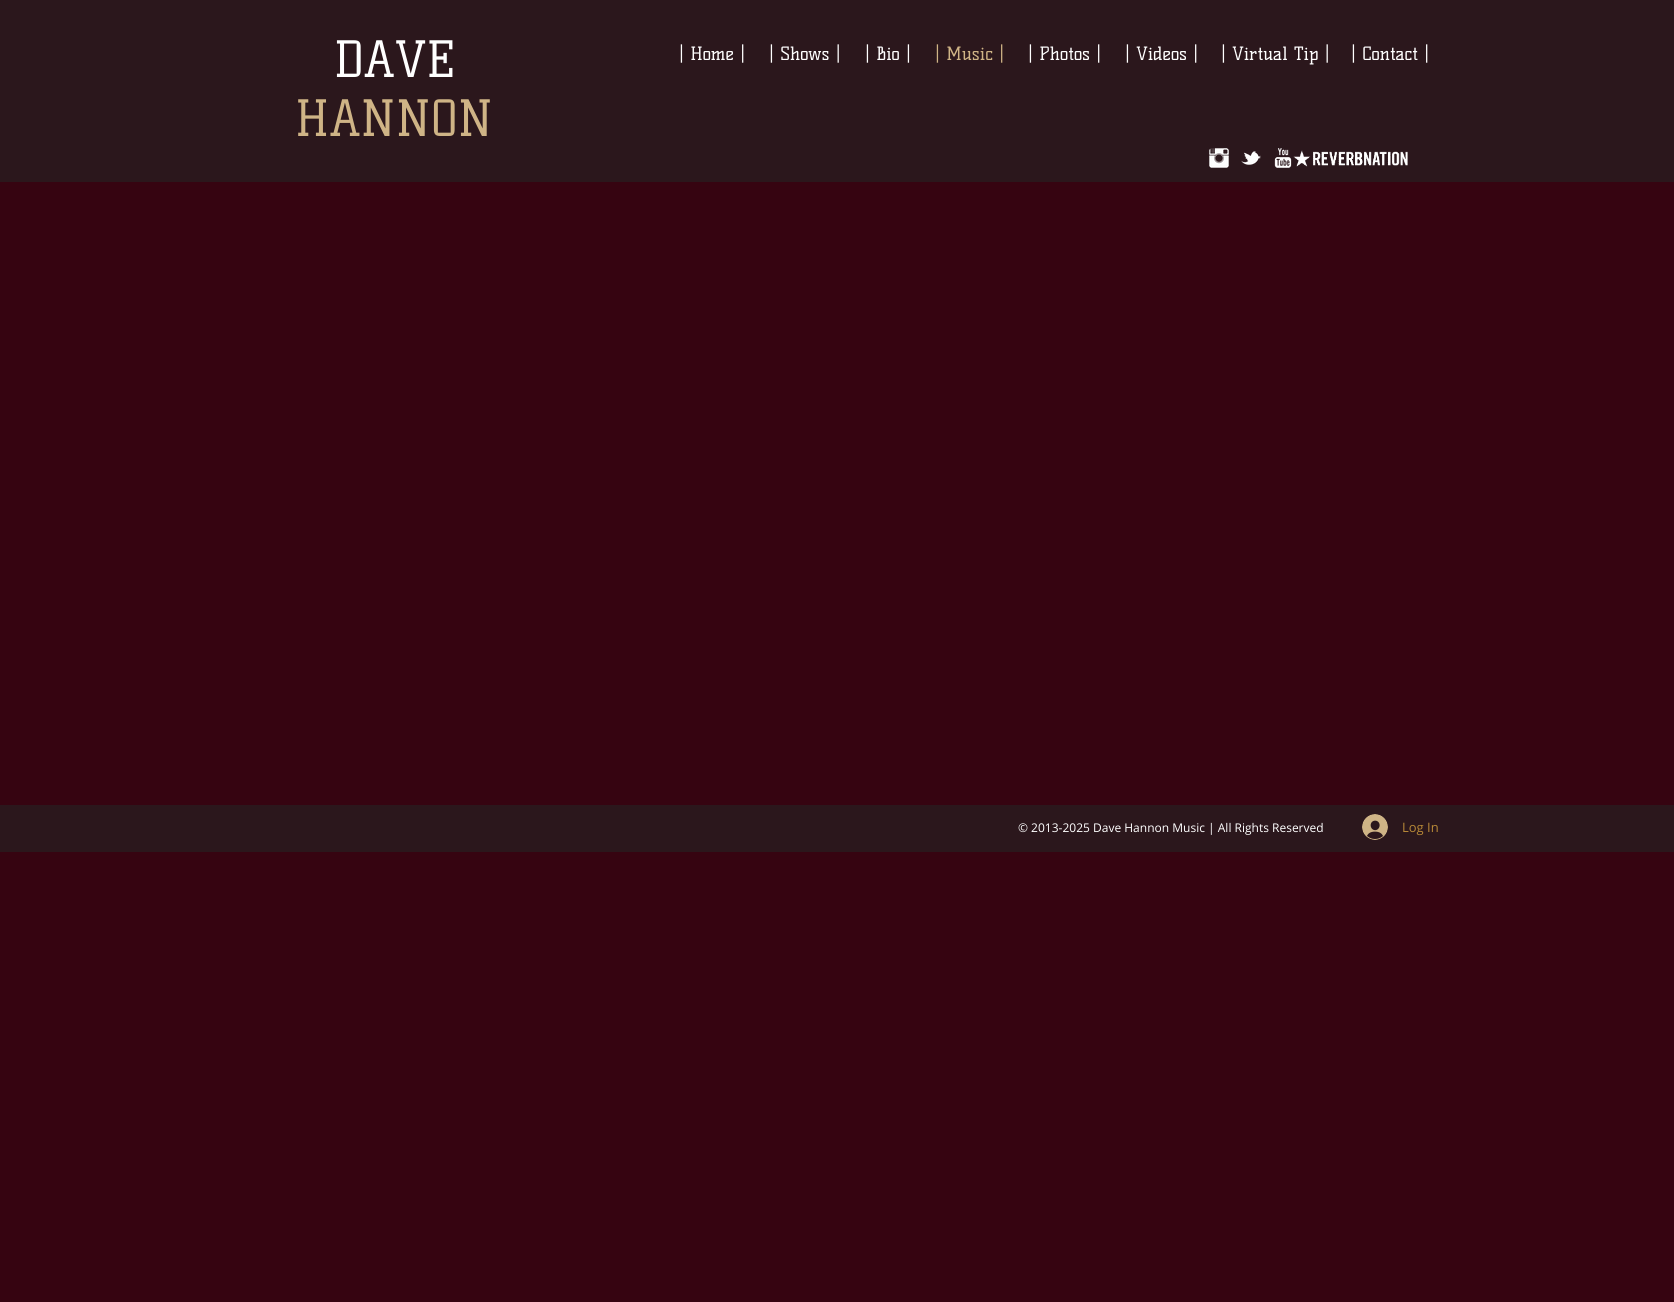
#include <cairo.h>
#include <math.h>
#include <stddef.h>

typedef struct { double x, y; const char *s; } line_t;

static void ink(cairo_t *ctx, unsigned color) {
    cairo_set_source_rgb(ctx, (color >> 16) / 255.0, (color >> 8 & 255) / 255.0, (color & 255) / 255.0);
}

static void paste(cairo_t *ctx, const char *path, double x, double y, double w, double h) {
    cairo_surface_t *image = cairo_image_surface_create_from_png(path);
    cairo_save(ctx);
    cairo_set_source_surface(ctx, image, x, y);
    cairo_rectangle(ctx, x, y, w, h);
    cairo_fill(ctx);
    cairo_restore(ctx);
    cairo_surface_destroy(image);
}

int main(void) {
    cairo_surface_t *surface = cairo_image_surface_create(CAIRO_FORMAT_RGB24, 1674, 1302);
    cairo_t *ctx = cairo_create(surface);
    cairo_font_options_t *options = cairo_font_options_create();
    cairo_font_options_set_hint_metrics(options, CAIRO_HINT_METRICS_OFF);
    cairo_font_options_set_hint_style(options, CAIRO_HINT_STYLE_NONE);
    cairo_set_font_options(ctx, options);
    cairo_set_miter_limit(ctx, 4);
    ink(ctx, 0x360411);
    cairo_paint(ctx);
    ink(ctx, 0x2B171C);
    cairo_rectangle(ctx, 0, 0, 1674, 182);
    cairo_fill(ctx);
    cairo_select_font_face(ctx, "Kelly Slab", CAIRO_FONT_SLANT_NORMAL, CAIRO_FONT_WEIGHT_NORMAL);
    cairo_set_font_size(ctx, 49);
    ink(ctx, 0xFFFFFF);
    cairo_move_to(ctx, 334, 77);
    cairo_show_text(ctx, "DAVE");
    ink(ctx, 0xCFB486);
    cairo_move_to(ctx, 295, 136);
    cairo_show_text(ctx, "HANNON");
    cairo_set_font_size(ctx, 18);
    ink(ctx, 0xFFFFFF);
    {
        static const line_t items[] = {
            {679, 60, "| Home |"},
            {769, 60, "| Shows |"},
            {865, 60, "| Bio |"},
        };
        for (size_t i = 0; i < sizeof items / sizeof *items; i++) {
            cairo_move_to(ctx, items[i].x, items[i].y);
            cairo_show_text(ctx, items[i].s);
        }
    }
    ink(ctx, 0xCFB486);
    cairo_move_to(ctx, 935, 60);
    cairo_show_text(ctx, "| Music |");
    ink(ctx, 0xFFFFFF);
    {
        static const line_t items[] = {
            {1028, 60, "| Photos |"},
            {1125, 60, "| Videos |"},
            {1221, 60, "| Virtual Tip |"},
            {1351, 60, "| Contact |"},
        };
        for (size_t i = 0; i < sizeof items / sizeof *items; i++) {
            cairo_move_to(ctx, items[i].x, items[i].y);
            cairo_show_text(ctx, items[i].s);
        }
    }
    paste(ctx, "media/1.png", 1209, 148, 20, 20);
    paste(ctx, "media/2.png", 1241, 151, 20, 14);
    paste(ctx, "media/3.png", 1274, 148, 18, 20);
    paste(ctx, "media/4.png", 1293, 150, 115, 17);
    ink(ctx, 0x2B171C);
    cairo_rectangle(ctx, 0, 805, 1674, 47);
    cairo_fill(ctx);
    cairo_select_font_face(ctx, "Open Sans", CAIRO_FONT_SLANT_NORMAL, CAIRO_FONT_WEIGHT_NORMAL);
    cairo_set_font_size(ctx, 12);
    ink(ctx, 0xFFFFFF);
    cairo_move_to(ctx, 1018, 832);
    cairo_show_text(ctx, "© 2013-2025 Dave Hannon Music | All Rights Reserved");
    paste(ctx, "media/5.png", 1362, 814, 26, 26);
    cairo_set_font_size(ctx, 13);
    ink(ctx, 0xB78837);
    cairo_move_to(ctx, 1402, 832);
    cairo_show_text(ctx, "Log In");
    cairo_surface_write_to_png(surface, "image.png");
    cairo_font_options_destroy(options);
    cairo_destroy(ctx);
    cairo_surface_destroy(surface);
    return 0;
}
